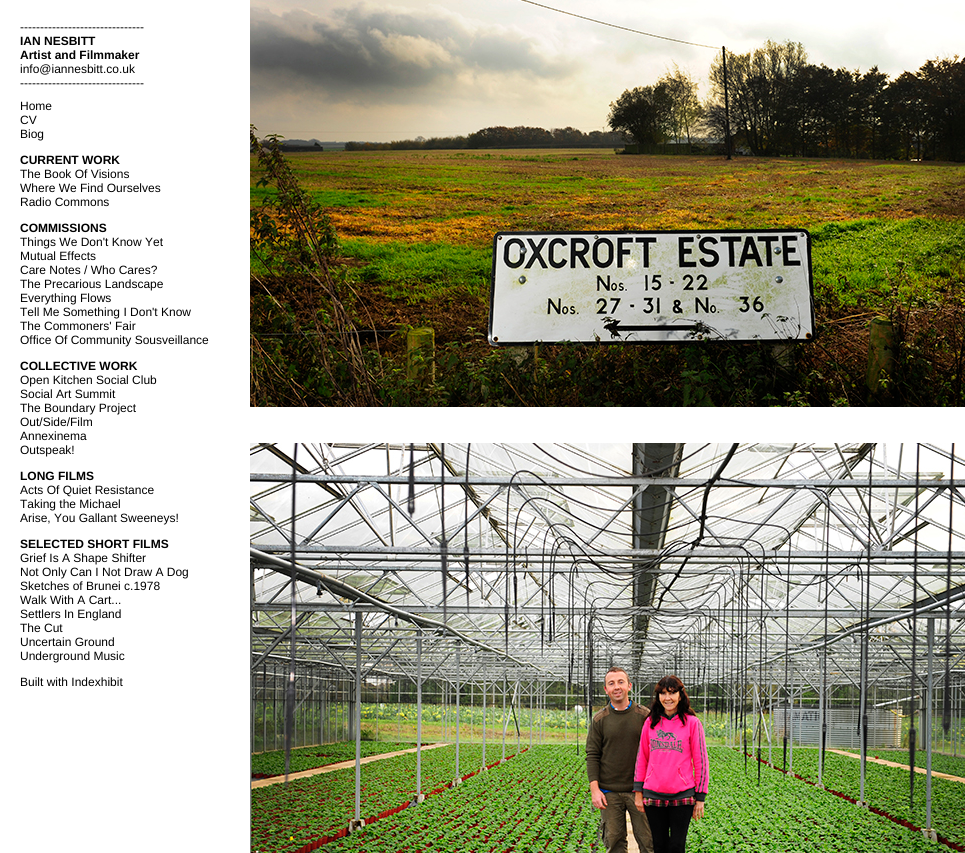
#include <cairo.h>
#include <math.h>
#include <stddef.h>

typedef struct { double x, y; const char *s; } line_t;

static void ink(cairo_t *ctx, unsigned color) {
    cairo_set_source_rgb(ctx, (color >> 16) / 255.0, (color >> 8 & 255) / 255.0, (color & 255) / 255.0);
}

static void paste(cairo_t *ctx, const char *path, double x, double y, double w, double h) {
    cairo_surface_t *image = cairo_image_surface_create_from_png(path);
    cairo_save(ctx);
    cairo_set_source_surface(ctx, image, x, y);
    cairo_rectangle(ctx, x, y, w, h);
    cairo_fill(ctx);
    cairo_restore(ctx);
    cairo_surface_destroy(image);
}

int main(void) {
    cairo_surface_t *surface = cairo_image_surface_create(CAIRO_FORMAT_RGB24, 965, 853);
    cairo_t *ctx = cairo_create(surface);
    cairo_font_options_t *options = cairo_font_options_create();
    cairo_font_options_set_hint_metrics(options, CAIRO_HINT_METRICS_OFF);
    cairo_font_options_set_hint_style(options, CAIRO_HINT_STYLE_NONE);
    cairo_set_font_options(ctx, options);
    cairo_set_miter_limit(ctx, 4);
    ink(ctx, 0xFFFFFF);
    cairo_paint(ctx);
    cairo_select_font_face(ctx, "Liberation Sans", CAIRO_FONT_SLANT_NORMAL, CAIRO_FONT_WEIGHT_NORMAL);
    cairo_set_font_size(ctx, 12);
    ink(ctx, 0x000000);
    cairo_move_to(ctx, 20, 31);
    cairo_show_text(ctx, "-------------------------------");
    cairo_select_font_face(ctx, "Liberation Sans", CAIRO_FONT_SLANT_NORMAL, CAIRO_FONT_WEIGHT_BOLD);
    cairo_move_to(ctx, 20, 45);
    cairo_show_text(ctx, "IAN NESBITT");
    cairo_move_to(ctx, 20, 59);
    cairo_show_text(ctx, "Artist and Filmmaker");
    cairo_select_font_face(ctx, "Liberation Sans", CAIRO_FONT_SLANT_NORMAL, CAIRO_FONT_WEIGHT_NORMAL);
    {
        static const line_t items[] = {
            {20, 73, "info@iannesbitt.co.uk"},
            {20, 87, "-------------------------------"},
            {20, 110, "Home"},
            {20, 124, "CV"},
            {20, 138, "Biog"},
        };
        for (size_t i = 0; i < sizeof items / sizeof *items; i++) {
            cairo_move_to(ctx, items[i].x, items[i].y);
            cairo_show_text(ctx, items[i].s);
        }
    }
    cairo_select_font_face(ctx, "Liberation Sans", CAIRO_FONT_SLANT_NORMAL, CAIRO_FONT_WEIGHT_BOLD);
    cairo_move_to(ctx, 20, 164);
    cairo_show_text(ctx, "CURRENT WORK");
    cairo_select_font_face(ctx, "Liberation Sans", CAIRO_FONT_SLANT_NORMAL, CAIRO_FONT_WEIGHT_NORMAL);
    {
        static const line_t items[] = {
            {20, 178, "The Book Of Visions"},
            {20, 192, "Where We Find Ourselves"},
            {20, 206, "Radio Commons"},
        };
        for (size_t i = 0; i < sizeof items / sizeof *items; i++) {
            cairo_move_to(ctx, items[i].x, items[i].y);
            cairo_show_text(ctx, items[i].s);
        }
    }
    cairo_select_font_face(ctx, "Liberation Sans", CAIRO_FONT_SLANT_NORMAL, CAIRO_FONT_WEIGHT_BOLD);
    cairo_move_to(ctx, 20, 232);
    cairo_show_text(ctx, "COMMISSIONS");
    cairo_select_font_face(ctx, "Liberation Sans", CAIRO_FONT_SLANT_NORMAL, CAIRO_FONT_WEIGHT_NORMAL);
    {
        static const line_t items[] = {
            {20, 246, "Things We Don't Know Yet"},
            {20, 260, "Mutual Effects"},
            {20, 274, "Care Notes / Who Cares?"},
            {20, 288, "The Precarious Landscape"},
            {20, 302, "Everything Flows"},
            {20, 316, "Tell Me Something I Don't Know"},
            {20, 330, "The Commoners' Fair"},
            {20, 344, "Office Of Community Sousveillance"},
        };
        for (size_t i = 0; i < sizeof items / sizeof *items; i++) {
            cairo_move_to(ctx, items[i].x, items[i].y);
            cairo_show_text(ctx, items[i].s);
        }
    }
    cairo_select_font_face(ctx, "Liberation Sans", CAIRO_FONT_SLANT_NORMAL, CAIRO_FONT_WEIGHT_BOLD);
    cairo_move_to(ctx, 20, 370);
    cairo_show_text(ctx, "COLLECTIVE WORK");
    cairo_select_font_face(ctx, "Liberation Sans", CAIRO_FONT_SLANT_NORMAL, CAIRO_FONT_WEIGHT_NORMAL);
    {
        static const line_t items[] = {
            {20, 384, "Open Kitchen Social Club"},
            {20, 398, "Social Art Summit"},
            {20, 412, "The Boundary Project"},
            {20, 426, "Out/Side/Film"},
            {20, 440, "Annexinema"},
            {20, 454, "Outspeak!"},
        };
        for (size_t i = 0; i < sizeof items / sizeof *items; i++) {
            cairo_move_to(ctx, items[i].x, items[i].y);
            cairo_show_text(ctx, items[i].s);
        }
    }
    cairo_select_font_face(ctx, "Liberation Sans", CAIRO_FONT_SLANT_NORMAL, CAIRO_FONT_WEIGHT_BOLD);
    cairo_move_to(ctx, 20, 480);
    cairo_show_text(ctx, "LONG FILMS");
    cairo_select_font_face(ctx, "Liberation Sans", CAIRO_FONT_SLANT_NORMAL, CAIRO_FONT_WEIGHT_NORMAL);
    {
        static const line_t items[] = {
            {20, 494, "Acts Of Quiet Resistance"},
            {20, 508, "Taking the Michael"},
            {20, 522, "Arise, You Gallant Sweeneys!"},
        };
        for (size_t i = 0; i < sizeof items / sizeof *items; i++) {
            cairo_move_to(ctx, items[i].x, items[i].y);
            cairo_show_text(ctx, items[i].s);
        }
    }
    cairo_select_font_face(ctx, "Liberation Sans", CAIRO_FONT_SLANT_NORMAL, CAIRO_FONT_WEIGHT_BOLD);
    cairo_move_to(ctx, 20, 548);
    cairo_show_text(ctx, "SELECTED SHORT FILMS");
    cairo_select_font_face(ctx, "Liberation Sans", CAIRO_FONT_SLANT_NORMAL, CAIRO_FONT_WEIGHT_NORMAL);
    {
        static const line_t items[] = {
            {20, 562, "Grief Is A Shape Shifter"},
            {20, 576, "Not Only Can I Not Draw A Dog"},
            {20, 590, "Sketches of Brunei c.1978"},
            {20, 604, "Walk With A Cart..."},
            {20, 618, "Settlers In England"},
            {20, 632, "The Cut"},
            {20, 646, "Uncertain Ground"},
            {20, 660, "Underground Music"},
            {20, 686, "Built with Indexhibit"},
        };
        for (size_t i = 0; i < sizeof items / sizeof *items; i++) {
            cairo_move_to(ctx, items[i].x, items[i].y);
            cairo_show_text(ctx, items[i].s);
        }
    }
    paste(ctx, "media/1.png", 250, 0, 715, 407);
    paste(ctx, "media/2.png", 250, 443, 715, 410);
    cairo_surface_write_to_png(surface, "image.png");
    cairo_font_options_destroy(options);
    cairo_destroy(ctx);
    cairo_surface_destroy(surface);
    return 0;
}
